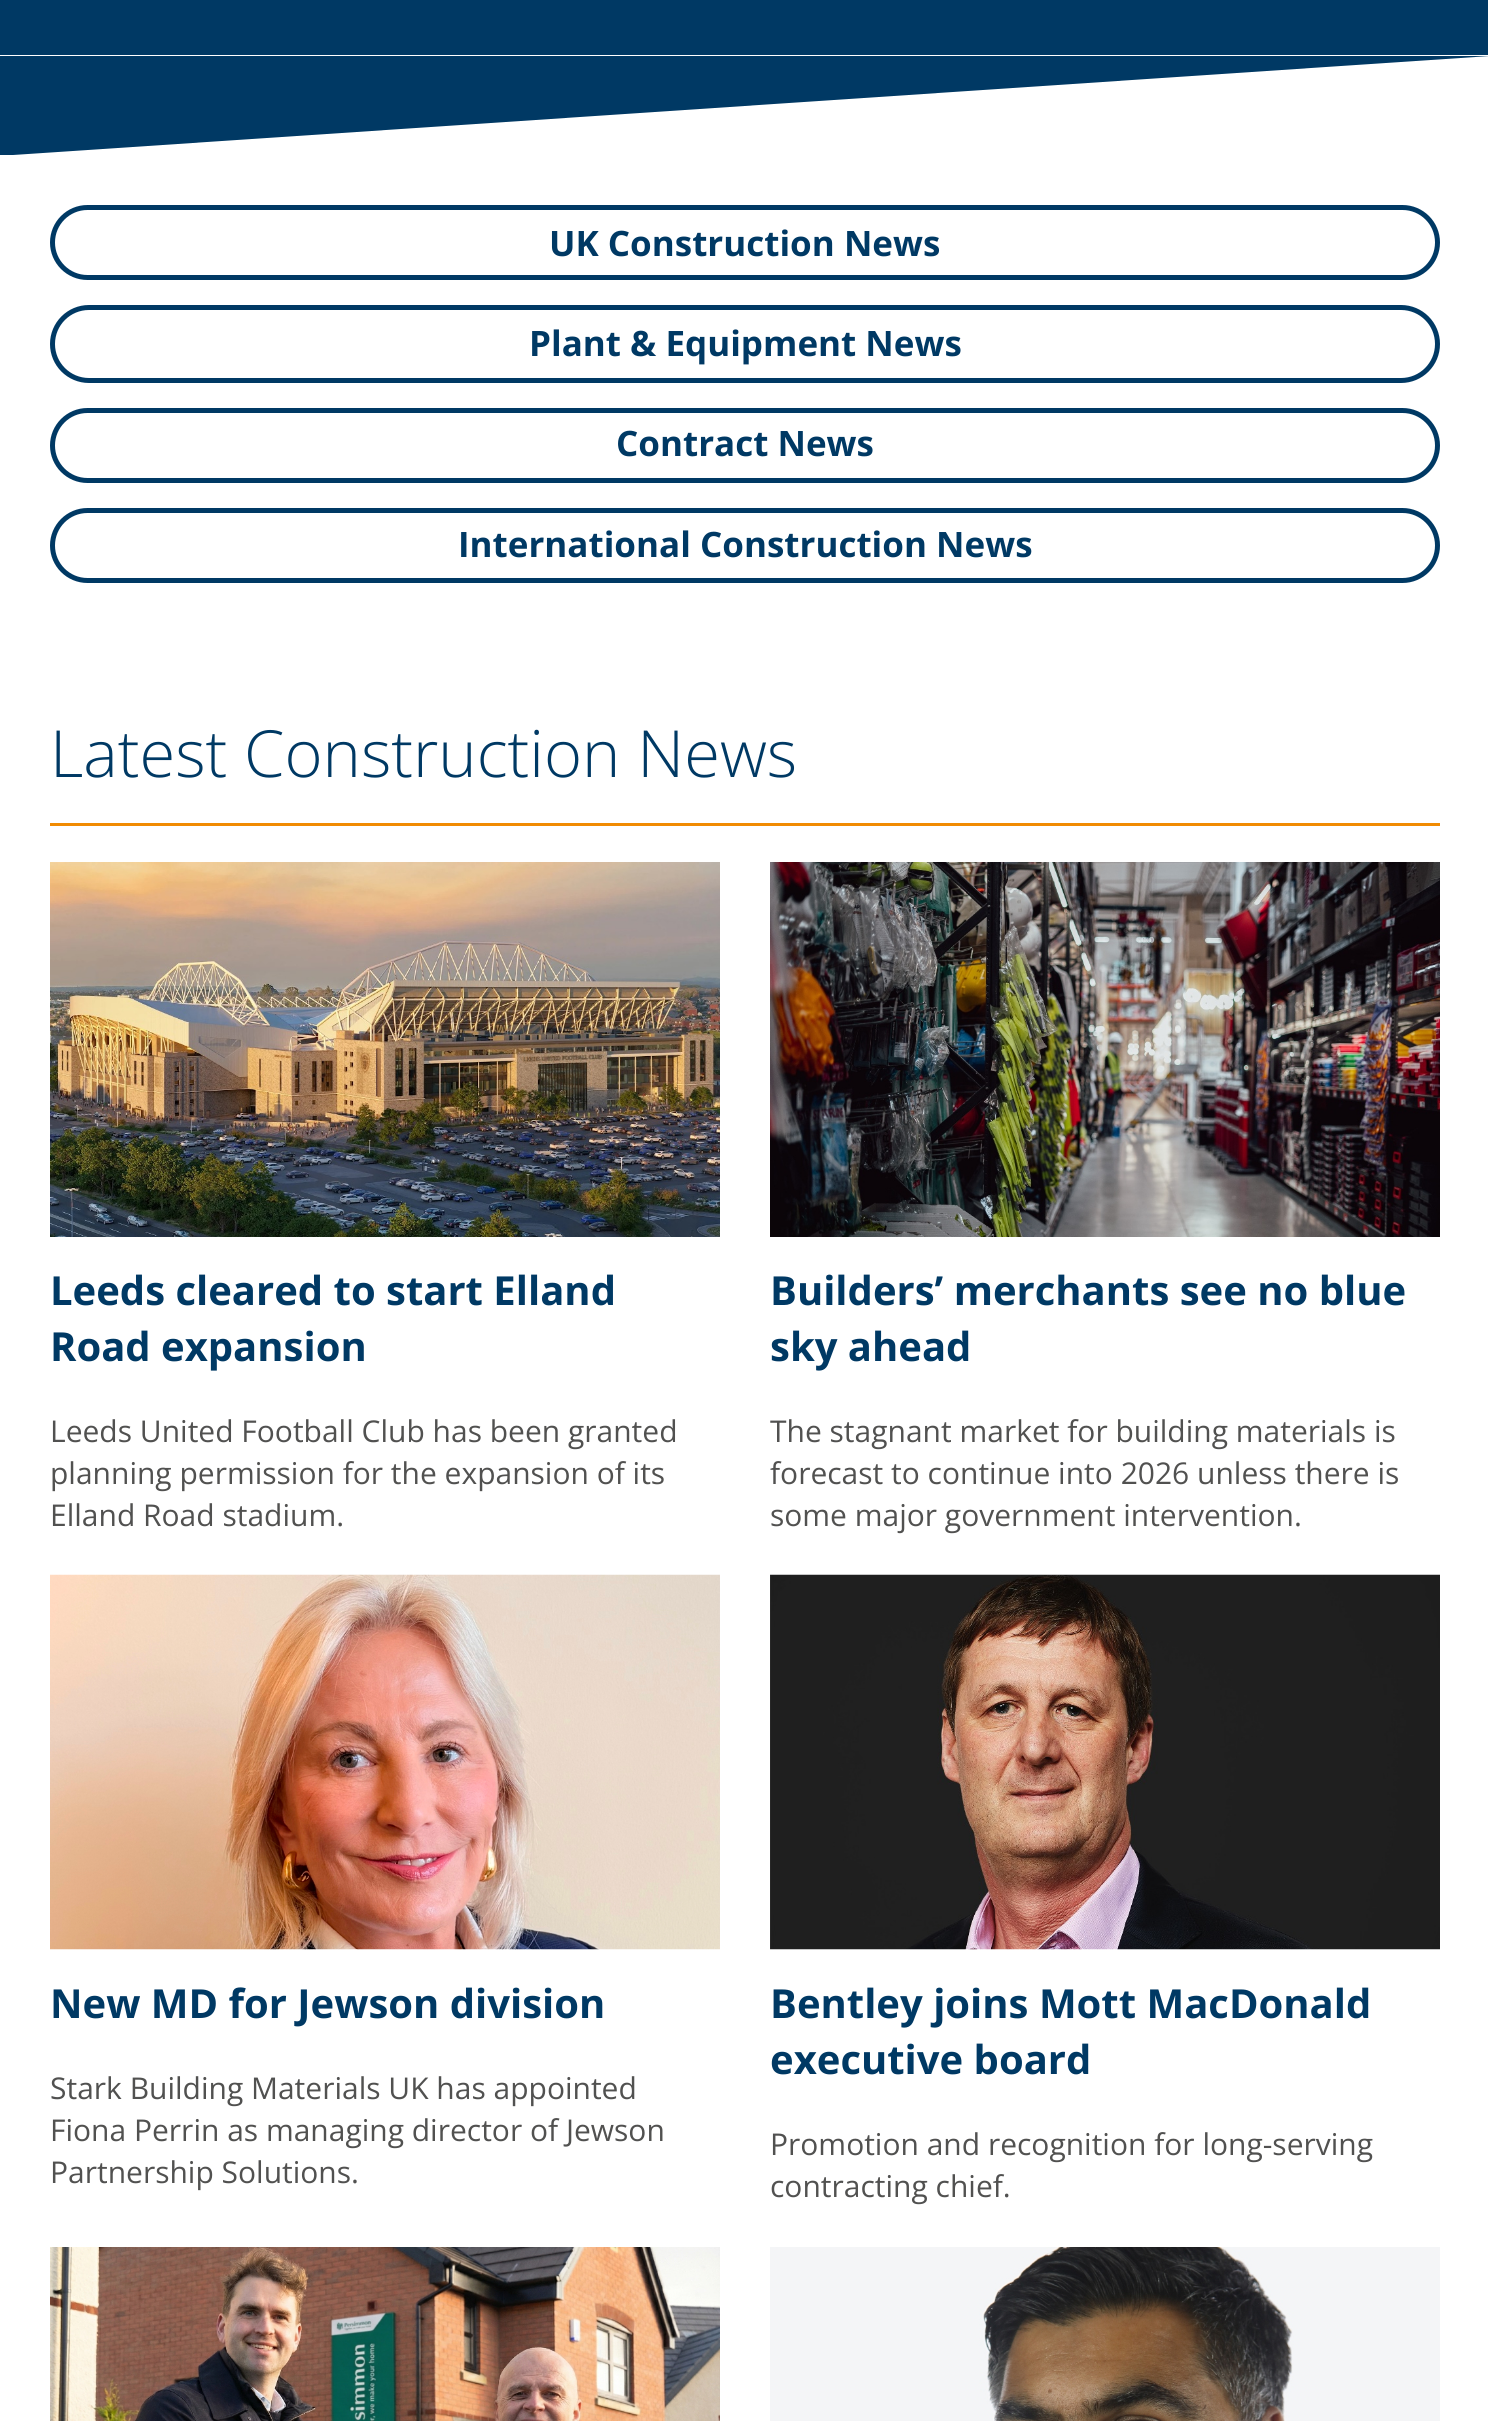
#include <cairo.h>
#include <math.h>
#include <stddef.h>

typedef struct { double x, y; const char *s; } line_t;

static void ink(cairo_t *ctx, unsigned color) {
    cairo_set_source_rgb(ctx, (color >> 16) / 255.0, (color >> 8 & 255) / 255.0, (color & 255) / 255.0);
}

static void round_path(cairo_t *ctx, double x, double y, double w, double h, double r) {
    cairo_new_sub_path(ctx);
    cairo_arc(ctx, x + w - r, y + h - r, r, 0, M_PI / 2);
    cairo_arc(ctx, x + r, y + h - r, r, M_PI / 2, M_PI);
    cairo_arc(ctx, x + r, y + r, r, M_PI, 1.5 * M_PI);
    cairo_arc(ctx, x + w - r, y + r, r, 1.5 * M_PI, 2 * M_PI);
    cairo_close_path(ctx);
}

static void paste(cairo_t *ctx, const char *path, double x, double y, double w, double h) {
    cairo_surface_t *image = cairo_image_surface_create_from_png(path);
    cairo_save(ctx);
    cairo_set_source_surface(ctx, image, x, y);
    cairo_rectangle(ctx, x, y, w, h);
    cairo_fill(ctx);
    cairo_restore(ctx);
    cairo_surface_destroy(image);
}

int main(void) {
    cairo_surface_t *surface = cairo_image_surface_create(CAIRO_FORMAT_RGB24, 1488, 2421);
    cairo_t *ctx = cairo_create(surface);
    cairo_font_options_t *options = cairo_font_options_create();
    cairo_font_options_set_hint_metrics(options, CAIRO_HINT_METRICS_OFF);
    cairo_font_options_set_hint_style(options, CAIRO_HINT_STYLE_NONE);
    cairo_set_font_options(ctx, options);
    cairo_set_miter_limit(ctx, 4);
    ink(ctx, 0xFFFFFF);
    cairo_paint(ctx);
    ink(ctx, 0x003964);
    cairo_rectangle(ctx, 0, 0, 1488, 55);
    cairo_fill(ctx);
    cairo_new_path(ctx);
    cairo_move_to(ctx, 0, 56);
    cairo_line_to(ctx, 0, 155);
    cairo_line_to(ctx, 13, 155);
    cairo_line_to(ctx, 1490, 56);
    cairo_close_path(ctx);
    cairo_fill(ctx);
    round_path(ctx, 52.5, 207.5, 1385, 70, 35);
    cairo_set_line_width(ctx, 5);
    cairo_stroke(ctx);
    cairo_select_font_face(ctx, "Open Sans", CAIRO_FONT_SLANT_NORMAL, CAIRO_FONT_WEIGHT_BOLD);
    cairo_set_font_size(ctx, 35);
    cairo_move_to(ctx, 549, 256);
    cairo_show_text(ctx, "UK Construction News");
    round_path(ctx, 52.5, 307.5, 1385, 73, 36.5);
    cairo_stroke(ctx);
    cairo_move_to(ctx, 529, 356);
    cairo_show_text(ctx, "Plant & Equipment News");
    round_path(ctx, 52.5, 410.5, 1385, 70, 35);
    cairo_stroke(ctx);
    cairo_move_to(ctx, 616, 456);
    cairo_show_text(ctx, "Contract News");
    round_path(ctx, 52.5, 510.5, 1385, 70, 35);
    cairo_stroke(ctx);
    cairo_move_to(ctx, 458, 557);
    cairo_show_text(ctx, "International Construction News");
    ink(ctx, 0xF18B02);
    cairo_rectangle(ctx, 50, 823, 1390, 3);
    cairo_fill(ctx);
    cairo_select_font_face(ctx, "Open Sans Light", CAIRO_FONT_SLANT_NORMAL, CAIRO_FONT_WEIGHT_NORMAL);
    cairo_set_font_size(ctx, 65);
    ink(ctx, 0x003964);
    cairo_move_to(ctx, 50, 777);
    cairo_show_text(ctx, "Latest Construction News");
    paste(ctx, "media/1.png", 50, 862, 670, 375);
    cairo_select_font_face(ctx, "Open Sans", CAIRO_FONT_SLANT_NORMAL, CAIRO_FONT_WEIGHT_BOLD);
    cairo_set_font_size(ctx, 40);
    cairo_move_to(ctx, 50, 1305);
    cairo_show_text(ctx, "Leeds cleared to start Elland");
    cairo_move_to(ctx, 50, 1361);
    cairo_show_text(ctx, "Road expansion");
    cairo_select_font_face(ctx, "Open Sans", CAIRO_FONT_SLANT_NORMAL, CAIRO_FONT_WEIGHT_NORMAL);
    cairo_set_font_size(ctx, 30);
    ink(ctx, 0x515150);
    {
        static const line_t items[] = {
            {50, 1442, "Leeds United Football Club has been granted"},
            {50, 1484, "planning permission for the expansion of its"},
            {50, 1526, "Elland Road stadium."},
        };
        for (size_t i = 0; i < sizeof items / sizeof *items; i++) {
            cairo_move_to(ctx, items[i].x, items[i].y);
            cairo_show_text(ctx, items[i].s);
        }
    }
    paste(ctx, "media/2.png", 770, 862, 670, 375);
    cairo_select_font_face(ctx, "Open Sans", CAIRO_FONT_SLANT_NORMAL, CAIRO_FONT_WEIGHT_BOLD);
    cairo_set_font_size(ctx, 40);
    ink(ctx, 0x003964);
    cairo_move_to(ctx, 770, 1305);
    cairo_show_text(ctx, "Builders’ merchants see no blue");
    cairo_move_to(ctx, 770, 1361);
    cairo_show_text(ctx, "sky ahead");
    cairo_select_font_face(ctx, "Open Sans", CAIRO_FONT_SLANT_NORMAL, CAIRO_FONT_WEIGHT_NORMAL);
    cairo_set_font_size(ctx, 30);
    ink(ctx, 0x515150);
    {
        static const line_t items[] = {
            {770, 1442, "The stagnant market for building materials is"},
            {770, 1484, "forecast to continue into 2026 unless there is"},
            {770, 1526, "some major government intervention."},
        };
        for (size_t i = 0; i < sizeof items / sizeof *items; i++) {
            cairo_move_to(ctx, items[i].x, items[i].y);
            cairo_show_text(ctx, items[i].s);
        }
    }
    paste(ctx, "media/3.png", 50, 1574, 670, 376);
    cairo_select_font_face(ctx, "Open Sans", CAIRO_FONT_SLANT_NORMAL, CAIRO_FONT_WEIGHT_BOLD);
    cairo_set_font_size(ctx, 40);
    ink(ctx, 0x003964);
    cairo_move_to(ctx, 50, 2018);
    cairo_show_text(ctx, "New MD for Jewson division");
    cairo_select_font_face(ctx, "Open Sans", CAIRO_FONT_SLANT_NORMAL, CAIRO_FONT_WEIGHT_NORMAL);
    cairo_set_font_size(ctx, 30);
    ink(ctx, 0x515150);
    {
        static const line_t items[] = {
            {50, 2099, "Stark Building Materials UK has appointed"},
            {50, 2141, "Fiona Perrin as managing director of Jewson"},
            {50, 2183, "Partnership Solutions."},
        };
        for (size_t i = 0; i < sizeof items / sizeof *items; i++) {
            cairo_move_to(ctx, items[i].x, items[i].y);
            cairo_show_text(ctx, items[i].s);
        }
    }
    paste(ctx, "media/4.png", 770, 1574, 670, 376);
    cairo_select_font_face(ctx, "Open Sans", CAIRO_FONT_SLANT_NORMAL, CAIRO_FONT_WEIGHT_BOLD);
    cairo_set_font_size(ctx, 40);
    ink(ctx, 0x003964);
    cairo_move_to(ctx, 770, 2018);
    cairo_show_text(ctx, "Bentley joins Mott MacDonald");
    cairo_move_to(ctx, 770, 2074);
    cairo_show_text(ctx, "executive board");
    cairo_select_font_face(ctx, "Open Sans", CAIRO_FONT_SLANT_NORMAL, CAIRO_FONT_WEIGHT_NORMAL);
    cairo_set_font_size(ctx, 30);
    ink(ctx, 0x515150);
    cairo_move_to(ctx, 770, 2155);
    cairo_show_text(ctx, "Promotion and recognition for long-serving");
    cairo_move_to(ctx, 770, 2197);
    cairo_show_text(ctx, "contracting chief.");
    paste(ctx, "media/5.png", 50, 2247, 670, 174);
    paste(ctx, "media/6.png", 770, 2247, 670, 174);
    cairo_surface_write_to_png(surface, "image.png");
    cairo_font_options_destroy(options);
    cairo_destroy(ctx);
    cairo_surface_destroy(surface);
    return 0;
}
